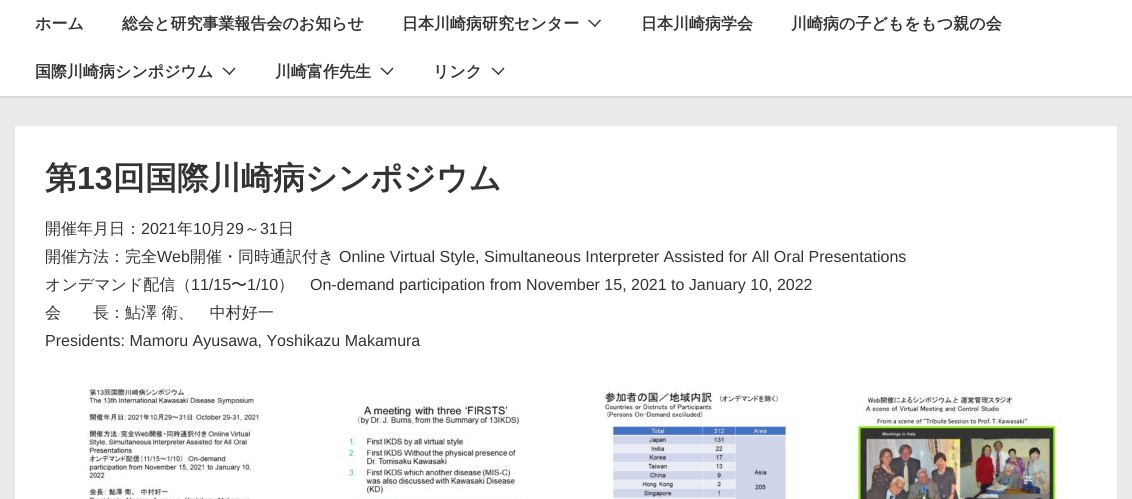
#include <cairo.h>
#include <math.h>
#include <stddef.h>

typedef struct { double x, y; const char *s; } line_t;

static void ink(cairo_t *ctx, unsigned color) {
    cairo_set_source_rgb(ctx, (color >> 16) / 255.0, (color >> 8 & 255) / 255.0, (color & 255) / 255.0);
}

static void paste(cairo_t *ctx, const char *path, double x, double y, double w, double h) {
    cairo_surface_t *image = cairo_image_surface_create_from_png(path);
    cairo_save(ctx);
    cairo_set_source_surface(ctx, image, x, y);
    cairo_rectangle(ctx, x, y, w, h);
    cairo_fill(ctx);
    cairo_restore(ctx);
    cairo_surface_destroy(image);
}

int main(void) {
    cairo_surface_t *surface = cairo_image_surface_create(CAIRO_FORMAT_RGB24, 1132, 499);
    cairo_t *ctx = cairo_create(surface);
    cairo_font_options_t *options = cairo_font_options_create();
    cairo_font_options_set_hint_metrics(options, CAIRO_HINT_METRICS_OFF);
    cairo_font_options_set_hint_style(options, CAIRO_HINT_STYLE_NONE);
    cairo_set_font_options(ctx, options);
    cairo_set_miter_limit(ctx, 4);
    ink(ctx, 0xEAEAEA);
    cairo_paint(ctx);
    ink(ctx, 0xFFFFFF);
    cairo_rectangle(ctx, 0, 0, 1132, 96);
    cairo_fill(ctx);
    ink(ctx, 0xD9D9D9);
    cairo_rectangle(ctx, 0, 96, 1132, 2);
    cairo_fill(ctx);
    cairo_select_font_face(ctx, "WenQuanYi Zen Hei", CAIRO_FONT_SLANT_NORMAL, CAIRO_FONT_WEIGHT_BOLD);
    cairo_set_font_size(ctx, 16);
    ink(ctx, 0x333333);
    {
        static const line_t items[] = {
            {35, 29, "ホーム"},
            {122, 29, "総会と研究事業報告会のお知らせ"},
            {402, 29, "日本川崎病研究センター"},
        };
        for (size_t i = 0; i < sizeof items / sizeof *items; i++) {
            cairo_move_to(ctx, items[i].x, items[i].y);
            cairo_show_text(ctx, items[i].s);
        }
    }
    cairo_new_path(ctx);
    cairo_move_to(ctx, 588, 20.5);
    cairo_line_to(ctx, 589, 19.5);
    cairo_line_to(ctx, 596, 26);
    cairo_line_to(ctx, 595, 27);
    cairo_close_path(ctx);
    cairo_fill(ctx);
    cairo_new_path(ctx);
    cairo_move_to(ctx, 594, 26);
    cairo_line_to(ctx, 600, 19.5);
    cairo_line_to(ctx, 601, 20.5);
    cairo_line_to(ctx, 595, 27);
    cairo_close_path(ctx);
    cairo_fill(ctx);
    {
        static const line_t items[] = {
            {641, 29, "日本川崎病学会"},
            {791, 29, "川崎病の子どもをもつ親の会"},
            {35, 77, "国際川崎病シンポジウム"},
        };
        for (size_t i = 0; i < sizeof items / sizeof *items; i++) {
            cairo_move_to(ctx, items[i].x, items[i].y);
            cairo_show_text(ctx, items[i].s);
        }
    }
    cairo_new_path(ctx);
    cairo_move_to(ctx, 222.5, 68.5);
    cairo_line_to(ctx, 223.5, 67.5);
    cairo_line_to(ctx, 230.5, 74);
    cairo_line_to(ctx, 229.5, 75);
    cairo_close_path(ctx);
    cairo_fill(ctx);
    cairo_new_path(ctx);
    cairo_move_to(ctx, 228.5, 74);
    cairo_line_to(ctx, 234.5, 67.5);
    cairo_line_to(ctx, 235.5, 68.5);
    cairo_line_to(ctx, 229.5, 75);
    cairo_close_path(ctx);
    cairo_fill(ctx);
    cairo_move_to(ctx, 275, 77);
    cairo_show_text(ctx, "川崎富作先生");
    cairo_new_path(ctx);
    cairo_move_to(ctx, 380.5, 68.5);
    cairo_line_to(ctx, 381.5, 67.5);
    cairo_line_to(ctx, 388.5, 74);
    cairo_line_to(ctx, 387.5, 75);
    cairo_close_path(ctx);
    cairo_fill(ctx);
    cairo_new_path(ctx);
    cairo_move_to(ctx, 386.5, 74);
    cairo_line_to(ctx, 392.5, 67.5);
    cairo_line_to(ctx, 393.5, 68.5);
    cairo_line_to(ctx, 387.5, 75);
    cairo_close_path(ctx);
    cairo_fill(ctx);
    cairo_move_to(ctx, 433, 77);
    cairo_show_text(ctx, "リンク");
    cairo_new_path(ctx);
    cairo_move_to(ctx, 491.5, 68.5);
    cairo_line_to(ctx, 492.5, 67.5);
    cairo_line_to(ctx, 499.5, 74);
    cairo_line_to(ctx, 498.5, 75);
    cairo_close_path(ctx);
    cairo_fill(ctx);
    cairo_new_path(ctx);
    cairo_move_to(ctx, 497.5, 74);
    cairo_line_to(ctx, 503.5, 67.5);
    cairo_line_to(ctx, 504.5, 68.5);
    cairo_line_to(ctx, 498.5, 75);
    cairo_close_path(ctx);
    cairo_fill(ctx);
    ink(ctx, 0xFFFFFF);
    cairo_rectangle(ctx, 15, 126, 1102, 373);
    cairo_fill(ctx);
    cairo_set_font_size(ctx, 32);
    ink(ctx, 0x333333);
    cairo_move_to(ctx, 45, 189);
    cairo_show_text(ctx, "第");
    cairo_select_font_face(ctx, "Liberation Sans", CAIRO_FONT_SLANT_NORMAL, CAIRO_FONT_WEIGHT_BOLD);
    cairo_move_to(ctx, 77, 189);
    cairo_show_text(ctx, "13");
    cairo_select_font_face(ctx, "WenQuanYi Zen Hei", CAIRO_FONT_SLANT_NORMAL, CAIRO_FONT_WEIGHT_BOLD);
    cairo_move_to(ctx, 113, 189);
    cairo_show_text(ctx, "回国際川崎病シンポジウム");
    cairo_select_font_face(ctx, "WenQuanYi Zen Hei Medium", CAIRO_FONT_SLANT_NORMAL, CAIRO_FONT_WEIGHT_NORMAL);
    cairo_set_font_size(ctx, 16);
    cairo_move_to(ctx, 45, 234);
    cairo_show_text(ctx, "開催年月日：");
    cairo_select_font_face(ctx, "Liberation Sans", CAIRO_FONT_SLANT_NORMAL, CAIRO_FONT_WEIGHT_NORMAL);
    cairo_move_to(ctx, 141, 234);
    cairo_show_text(ctx, "2021");
    cairo_select_font_face(ctx, "WenQuanYi Zen Hei Medium", CAIRO_FONT_SLANT_NORMAL, CAIRO_FONT_WEIGHT_NORMAL);
    cairo_move_to(ctx, 177, 234);
    cairo_show_text(ctx, "年");
    cairo_select_font_face(ctx, "Liberation Sans", CAIRO_FONT_SLANT_NORMAL, CAIRO_FONT_WEIGHT_NORMAL);
    cairo_move_to(ctx, 193, 234);
    cairo_show_text(ctx, "10");
    cairo_select_font_face(ctx, "WenQuanYi Zen Hei Medium", CAIRO_FONT_SLANT_NORMAL, CAIRO_FONT_WEIGHT_NORMAL);
    cairo_move_to(ctx, 210, 234);
    cairo_show_text(ctx, "月");
    cairo_select_font_face(ctx, "Liberation Sans", CAIRO_FONT_SLANT_NORMAL, CAIRO_FONT_WEIGHT_NORMAL);
    cairo_move_to(ctx, 226, 234);
    cairo_show_text(ctx, "29");
    cairo_select_font_face(ctx, "WenQuanYi Zen Hei Medium", CAIRO_FONT_SLANT_NORMAL, CAIRO_FONT_WEIGHT_NORMAL);
    cairo_move_to(ctx, 244, 234);
    cairo_show_text(ctx, "～");
    cairo_select_font_face(ctx, "Liberation Sans", CAIRO_FONT_SLANT_NORMAL, CAIRO_FONT_WEIGHT_NORMAL);
    cairo_move_to(ctx, 260, 234);
    cairo_show_text(ctx, "31");
    cairo_select_font_face(ctx, "WenQuanYi Zen Hei Medium", CAIRO_FONT_SLANT_NORMAL, CAIRO_FONT_WEIGHT_NORMAL);
    cairo_move_to(ctx, 278, 234);
    cairo_show_text(ctx, "日");
    cairo_move_to(ctx, 45, 262);
    cairo_show_text(ctx, "開催方法：完全");
    cairo_select_font_face(ctx, "Liberation Sans", CAIRO_FONT_SLANT_NORMAL, CAIRO_FONT_WEIGHT_NORMAL);
    cairo_move_to(ctx, 157, 262);
    cairo_show_text(ctx, "Web");
    cairo_select_font_face(ctx, "WenQuanYi Zen Hei Medium", CAIRO_FONT_SLANT_NORMAL, CAIRO_FONT_WEIGHT_NORMAL);
    cairo_move_to(ctx, 190, 262);
    cairo_show_text(ctx, "開催・同時通訳付き");
    cairo_select_font_face(ctx, "Liberation Sans", CAIRO_FONT_SLANT_NORMAL, CAIRO_FONT_WEIGHT_NORMAL);
    cairo_move_to(ctx, 339, 262);
    cairo_show_text(ctx, "Online Virtual Style, Simultaneous Interpreter Assisted for All Oral Presentations");
    cairo_select_font_face(ctx, "WenQuanYi Zen Hei Medium", CAIRO_FONT_SLANT_NORMAL, CAIRO_FONT_WEIGHT_NORMAL);
    cairo_move_to(ctx, 45, 290);
    cairo_show_text(ctx, "オンデマンド配信（");
    cairo_select_font_face(ctx, "Liberation Sans", CAIRO_FONT_SLANT_NORMAL, CAIRO_FONT_WEIGHT_NORMAL);
    cairo_move_to(ctx, 191, 290);
    cairo_show_text(ctx, "11/15");
    cairo_select_font_face(ctx, "WenQuanYi Zen Hei Medium", CAIRO_FONT_SLANT_NORMAL, CAIRO_FONT_WEIGHT_NORMAL);
    cairo_move_to(ctx, 231, 290);
    cairo_show_text(ctx, "〜");
    cairo_select_font_face(ctx, "Liberation Sans", CAIRO_FONT_SLANT_NORMAL, CAIRO_FONT_WEIGHT_NORMAL);
    cairo_move_to(ctx, 247, 290);
    cairo_show_text(ctx, "1/10");
    cairo_select_font_face(ctx, "WenQuanYi Zen Hei Medium", CAIRO_FONT_SLANT_NORMAL, CAIRO_FONT_WEIGHT_NORMAL);
    cairo_move_to(ctx, 278, 290);
    cairo_show_text(ctx, "）");
    cairo_select_font_face(ctx, "Liberation Sans", CAIRO_FONT_SLANT_NORMAL, CAIRO_FONT_WEIGHT_NORMAL);
    cairo_move_to(ctx, 310, 290);
    cairo_show_text(ctx, "On-demand participation from November 15, 2021 to January 10, 2022");
    cairo_select_font_face(ctx, "WenQuanYi Zen Hei Medium", CAIRO_FONT_SLANT_NORMAL, CAIRO_FONT_WEIGHT_NORMAL);
    cairo_move_to(ctx, 45, 318);
    cairo_show_text(ctx, "会　　長：鮎澤 衛、　中村好一");
    cairo_select_font_face(ctx, "Liberation Sans", CAIRO_FONT_SLANT_NORMAL, CAIRO_FONT_WEIGHT_NORMAL);
    cairo_move_to(ctx, 45, 346);
    cairo_show_text(ctx, "Presidents: Mamoru Ayusawa, Yoshikazu Makamura");
    paste(ctx, "media/1.png", 87, 385, 176, 114);
    paste(ctx, "media/2.png", 347, 401, 177, 98);
    paste(ctx, "media/3.png", 600, 385, 200, 114);
    paste(ctx, "media/4.png", 853, 393, 208, 106);
    cairo_surface_write_to_png(surface, "image.png");
    cairo_font_options_destroy(options);
    cairo_destroy(ctx);
    cairo_surface_destroy(surface);
    return 0;
}
